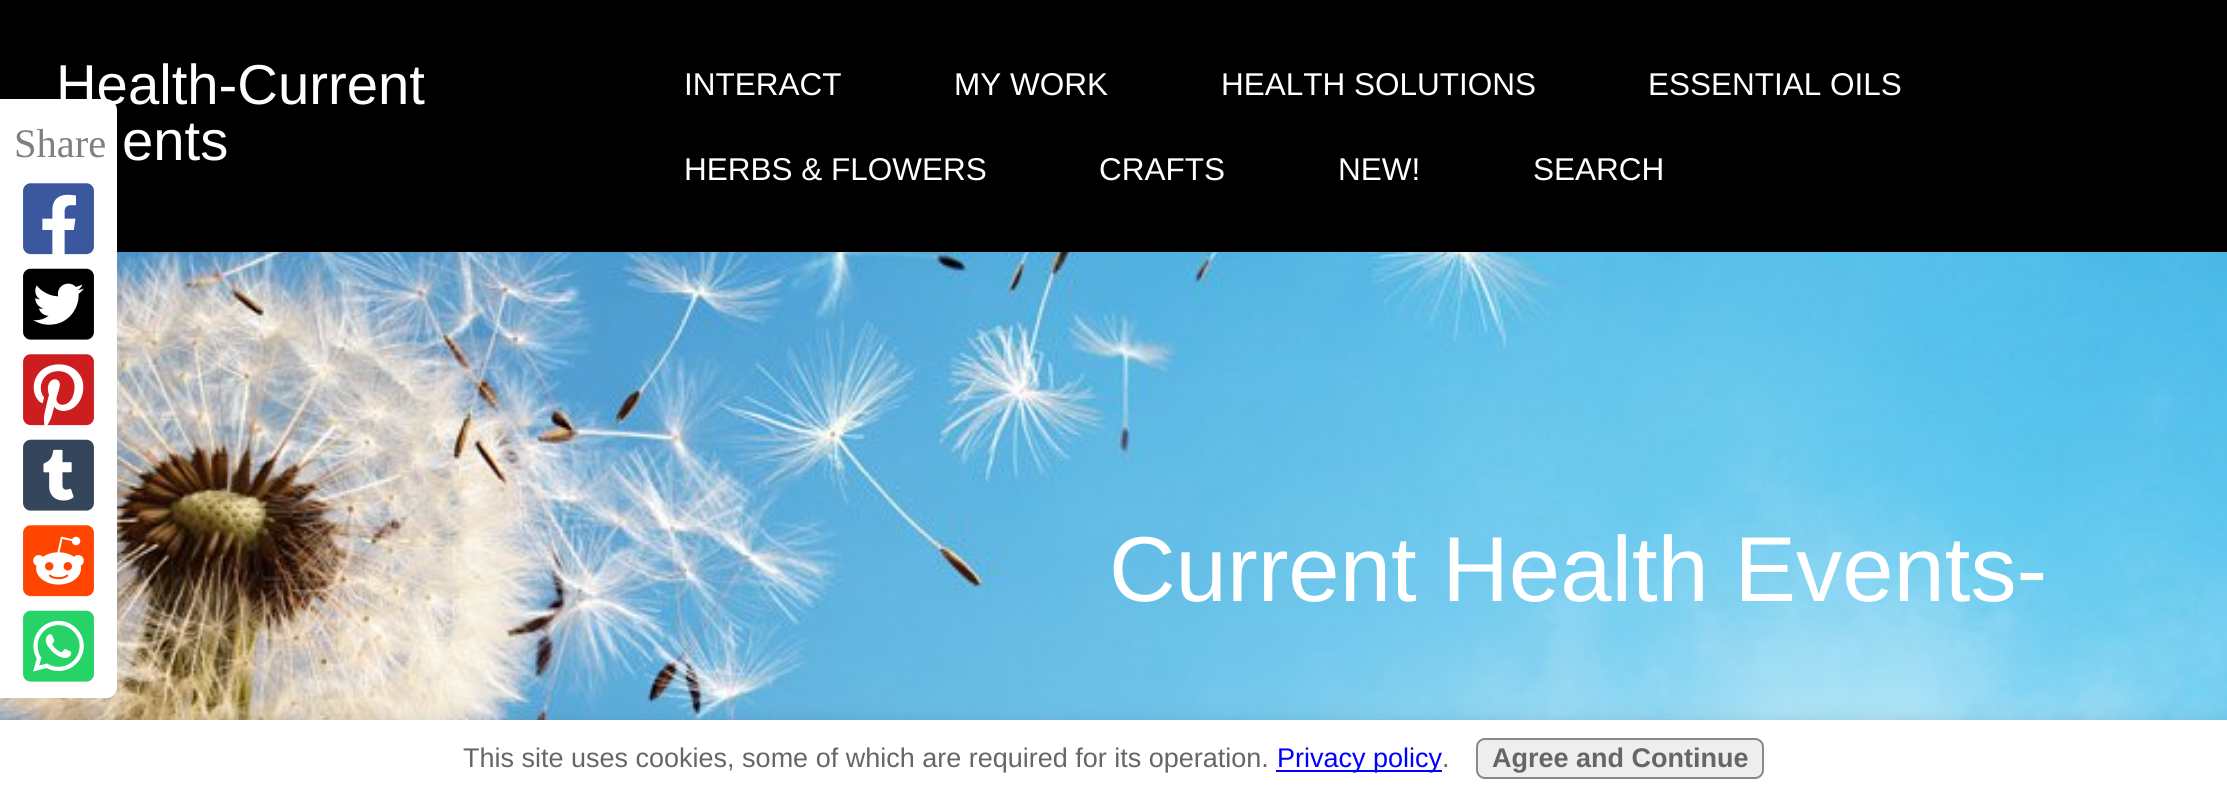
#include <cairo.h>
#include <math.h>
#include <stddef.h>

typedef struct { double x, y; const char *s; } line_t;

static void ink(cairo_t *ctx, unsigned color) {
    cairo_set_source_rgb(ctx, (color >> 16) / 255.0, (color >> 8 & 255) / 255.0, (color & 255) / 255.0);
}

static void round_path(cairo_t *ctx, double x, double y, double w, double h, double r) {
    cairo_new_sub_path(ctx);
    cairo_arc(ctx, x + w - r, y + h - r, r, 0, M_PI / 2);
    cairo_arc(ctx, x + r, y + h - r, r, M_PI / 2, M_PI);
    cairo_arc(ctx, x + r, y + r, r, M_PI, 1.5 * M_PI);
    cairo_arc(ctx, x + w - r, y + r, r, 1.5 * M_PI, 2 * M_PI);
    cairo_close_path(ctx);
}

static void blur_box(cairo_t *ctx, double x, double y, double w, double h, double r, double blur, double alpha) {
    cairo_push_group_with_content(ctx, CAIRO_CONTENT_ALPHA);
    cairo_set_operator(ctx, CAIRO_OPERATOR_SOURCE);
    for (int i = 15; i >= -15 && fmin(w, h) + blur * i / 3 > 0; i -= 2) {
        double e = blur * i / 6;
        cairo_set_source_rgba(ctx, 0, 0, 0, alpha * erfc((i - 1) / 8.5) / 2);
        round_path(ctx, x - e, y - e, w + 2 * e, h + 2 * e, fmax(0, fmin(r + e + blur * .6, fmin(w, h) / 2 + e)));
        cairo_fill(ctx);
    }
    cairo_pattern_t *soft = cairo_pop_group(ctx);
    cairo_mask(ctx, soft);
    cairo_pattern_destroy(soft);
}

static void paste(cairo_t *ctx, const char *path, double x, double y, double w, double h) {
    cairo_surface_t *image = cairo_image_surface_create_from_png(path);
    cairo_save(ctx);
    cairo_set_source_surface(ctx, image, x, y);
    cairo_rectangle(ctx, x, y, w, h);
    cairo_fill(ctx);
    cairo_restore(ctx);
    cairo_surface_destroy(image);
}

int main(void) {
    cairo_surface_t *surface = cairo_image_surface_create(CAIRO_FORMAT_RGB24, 2227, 795);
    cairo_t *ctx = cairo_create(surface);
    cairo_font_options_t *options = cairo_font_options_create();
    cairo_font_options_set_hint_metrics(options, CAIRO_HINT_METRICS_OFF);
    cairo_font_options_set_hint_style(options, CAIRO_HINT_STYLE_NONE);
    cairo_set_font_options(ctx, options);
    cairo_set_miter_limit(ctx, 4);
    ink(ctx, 0xFFFFFF);
    cairo_paint(ctx);
    paste(ctx, "media/1.png", 0, 252, 2227, 468);
    ink(ctx, 0x000000);
    cairo_rectangle(ctx, 0, 0, 2227, 252);
    cairo_fill(ctx);
    cairo_select_font_face(ctx, "Liberation Sans", CAIRO_FONT_SLANT_NORMAL, CAIRO_FONT_WEIGHT_NORMAL);
    cairo_set_font_size(ctx, 56.25);
    ink(ctx, 0xFFFFFF);
    cairo_move_to(ctx, 56, 104);
    cairo_show_text(ctx, "Health-Current");
    cairo_move_to(ctx, 122, 160);
    cairo_show_text(ctx, "ents");
    cairo_set_font_size(ctx, 31.5);
    {
        static const line_t items[] = {
            {684, 95, "INTERACT"},
            {954, 95, "MY WORK"},
            {1221, 95, "HEALTH SOLUTIONS"},
            {1648, 95, "ESSENTIAL OILS"},
            {684, 180, "HERBS & FLOWERS"},
            {1099, 180, "CRAFTS"},
            {1338, 180, "NEW!"},
            {1533, 180, "SEARCH"},
        };
        for (size_t i = 0; i < sizeof items / sizeof *items; i++) {
            cairo_move_to(ctx, items[i].x, items[i].y);
            cairo_show_text(ctx, items[i].s);
        }
    }
    cairo_set_font_size(ctx, 92.25);
    cairo_move_to(ctx, 1109, 601);
    cairo_show_text(ctx, "Current Health Events-");
    cairo_new_path(ctx);
    cairo_move_to(ctx, 0, 99);
    cairo_line_to(ctx, 106, 99);
    cairo_curve_to(ctx, 112, 99, 117, 104, 117, 110);
    cairo_line_to(ctx, 117, 687);
    cairo_curve_to(ctx, 117, 693, 112, 698, 106, 698);
    cairo_line_to(ctx, 0, 698);
    cairo_close_path(ctx);
    cairo_fill(ctx);
    cairo_select_font_face(ctx, "Liberation Serif", CAIRO_FONT_SLANT_NORMAL, CAIRO_FONT_WEIGHT_NORMAL);
    cairo_set_font_size(ctx, 40.5);
    ink(ctx, 0x808080);
    cairo_move_to(ctx, 14, 157);
    cairo_show_text(ctx, "Share");
    paste(ctx, "media/2.png", 23, 183, 71, 72);
    paste(ctx, "media/3.png", 23, 268, 71, 72);
    paste(ctx, "media/4.png", 23, 354, 71, 72);
    paste(ctx, "media/5.png", 23, 439, 71, 72);
    paste(ctx, "media/6.png", 23, 525, 71, 72);
    paste(ctx, "media/7.png", 23, 610, 71, 72);
    ink(ctx, 0x000000);
    blur_box(ctx, -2, 727, 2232, 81, 0, 11, 0.2);
    ink(ctx, 0xFFFFFF);
    cairo_rectangle(ctx, 0, 720, 2227, 75);
    cairo_fill(ctx);
    cairo_select_font_face(ctx, "Liberation Sans", CAIRO_FONT_SLANT_NORMAL, CAIRO_FONT_WEIGHT_NORMAL);
    cairo_set_font_size(ctx, 27);
    ink(ctx, 0x666666);
    cairo_move_to(ctx, 463, 767);
    cairo_show_text(ctx, "This site uses cookies, some of which are required for its operation.");
    ink(ctx, 0x0000FF);
    cairo_rectangle(ctx, 1276, 770, 166, 2);
    cairo_fill(ctx);
    cairo_move_to(ctx, 1277, 767);
    cairo_show_text(ctx, "Privacy policy");
    ink(ctx, 0x666666);
    cairo_move_to(ctx, 1442, 767);
    cairo_show_text(ctx, ".");
    ink(ctx, 0xEEEEEE);
    round_path(ctx, 1477, 739, 286, 39, 8);
    cairo_fill_preserve(ctx);
    ink(ctx, 0x888888);
    cairo_stroke(ctx);
    cairo_select_font_face(ctx, "Liberation Sans", CAIRO_FONT_SLANT_NORMAL, CAIRO_FONT_WEIGHT_BOLD);
    ink(ctx, 0x666666);
    cairo_move_to(ctx, 1492, 767);
    cairo_show_text(ctx, "Agree and Continue");
    cairo_surface_write_to_png(surface, "image.png");
    cairo_font_options_destroy(options);
    cairo_destroy(ctx);
    cairo_surface_destroy(surface);
    return 0;
}
